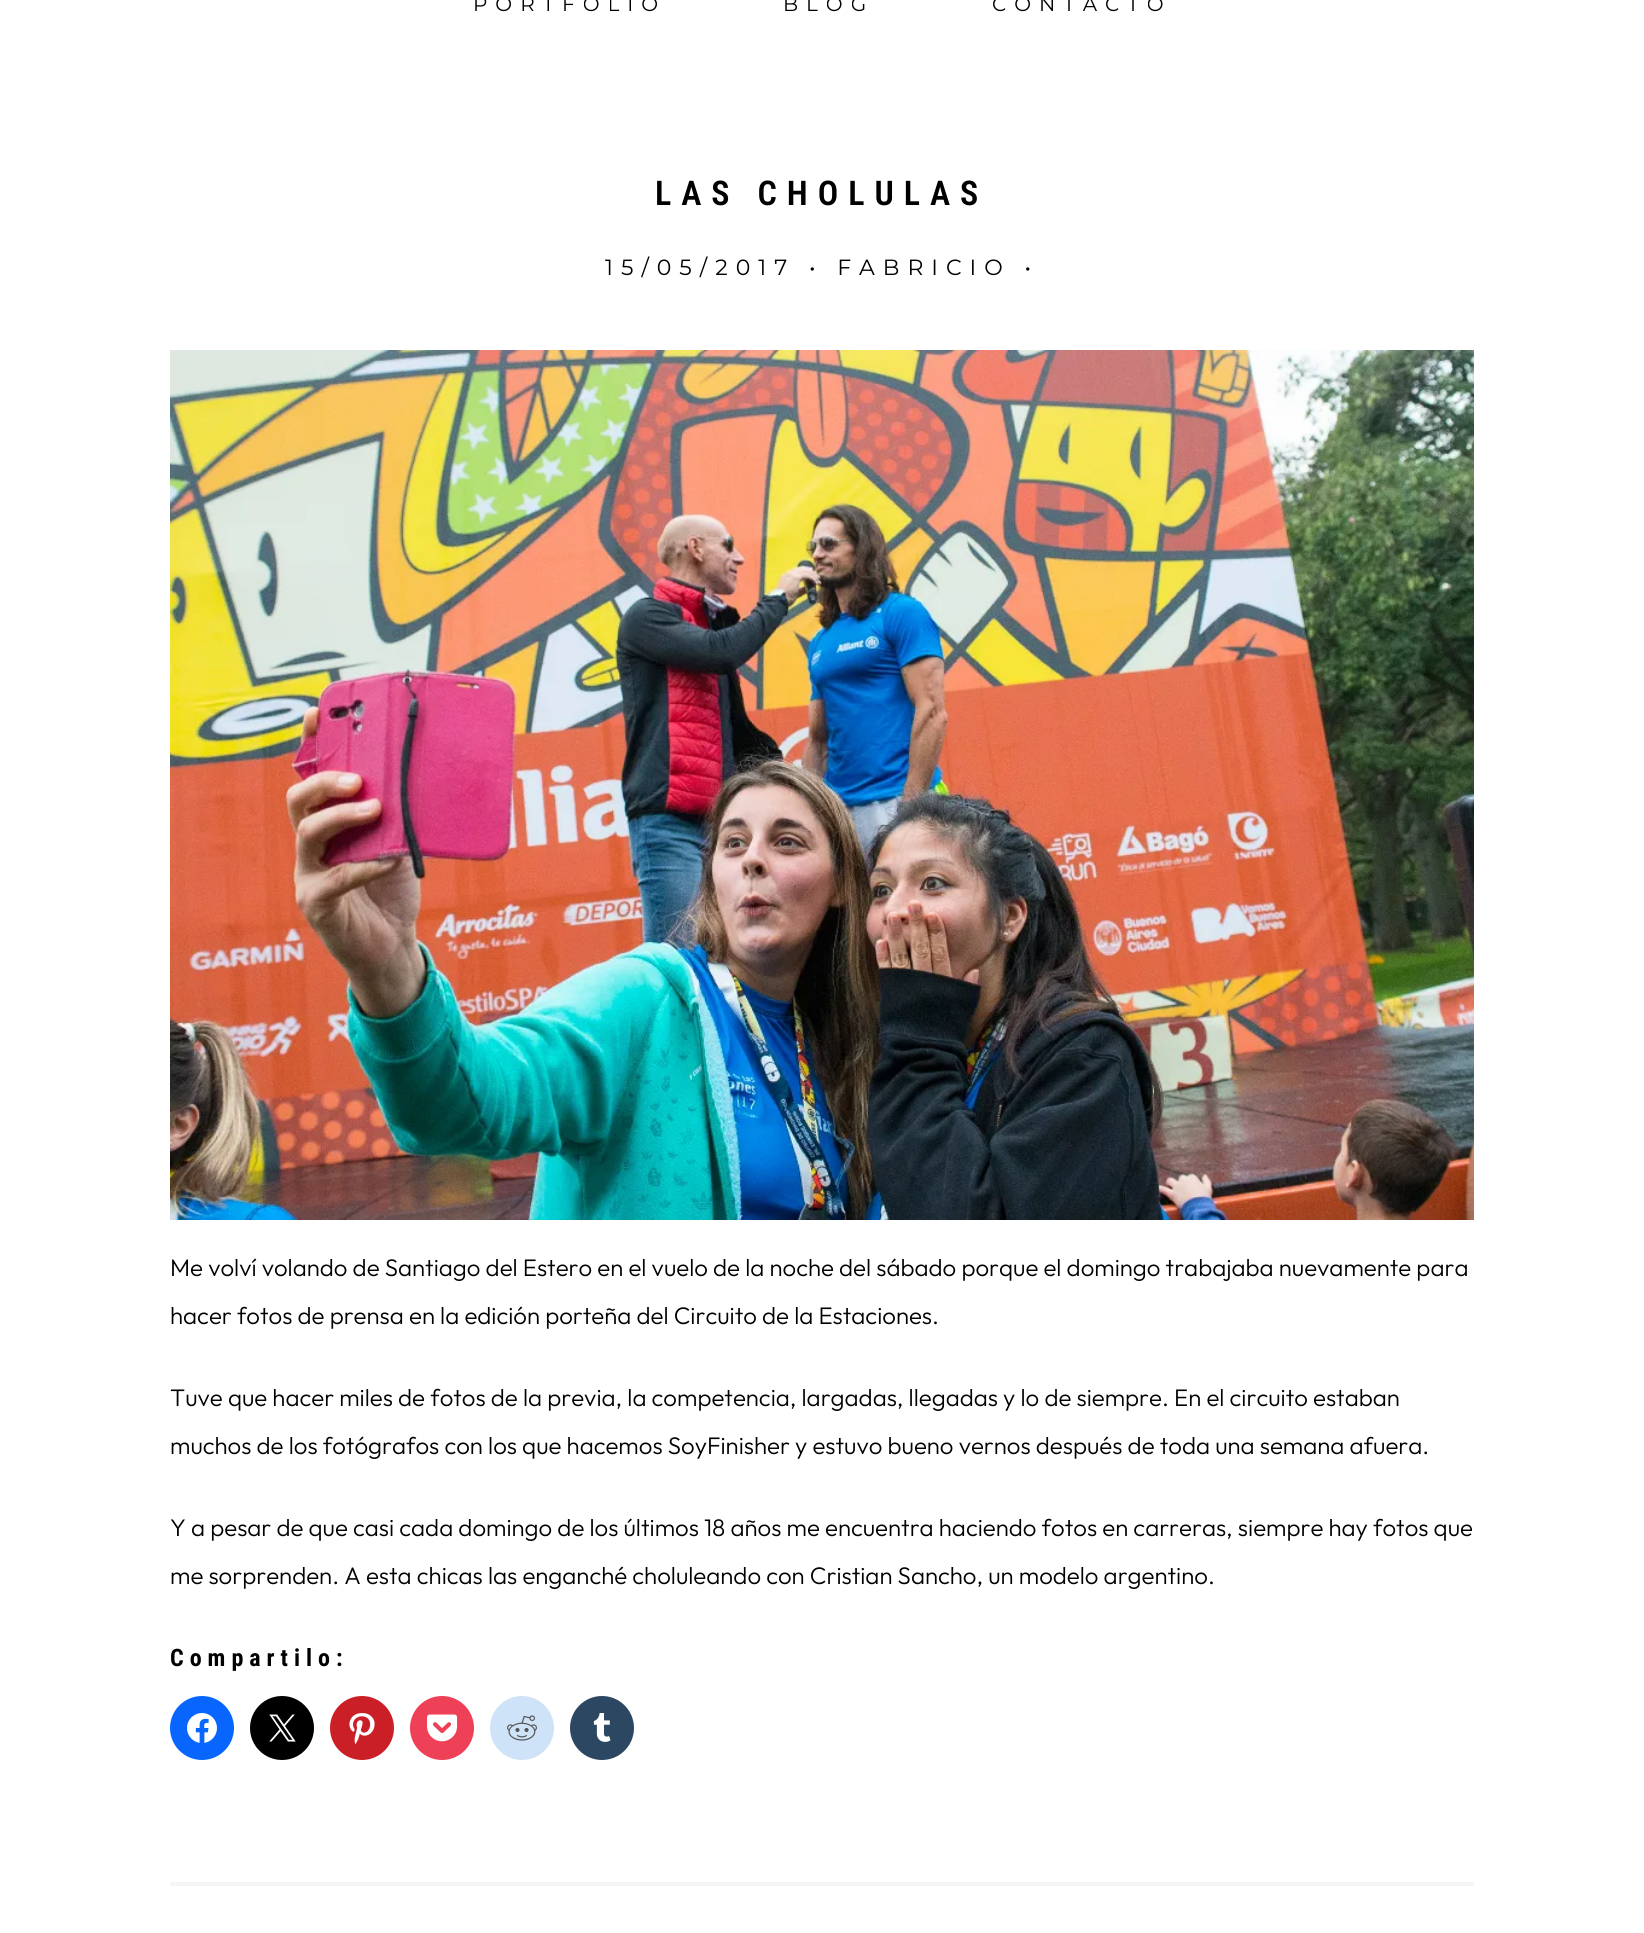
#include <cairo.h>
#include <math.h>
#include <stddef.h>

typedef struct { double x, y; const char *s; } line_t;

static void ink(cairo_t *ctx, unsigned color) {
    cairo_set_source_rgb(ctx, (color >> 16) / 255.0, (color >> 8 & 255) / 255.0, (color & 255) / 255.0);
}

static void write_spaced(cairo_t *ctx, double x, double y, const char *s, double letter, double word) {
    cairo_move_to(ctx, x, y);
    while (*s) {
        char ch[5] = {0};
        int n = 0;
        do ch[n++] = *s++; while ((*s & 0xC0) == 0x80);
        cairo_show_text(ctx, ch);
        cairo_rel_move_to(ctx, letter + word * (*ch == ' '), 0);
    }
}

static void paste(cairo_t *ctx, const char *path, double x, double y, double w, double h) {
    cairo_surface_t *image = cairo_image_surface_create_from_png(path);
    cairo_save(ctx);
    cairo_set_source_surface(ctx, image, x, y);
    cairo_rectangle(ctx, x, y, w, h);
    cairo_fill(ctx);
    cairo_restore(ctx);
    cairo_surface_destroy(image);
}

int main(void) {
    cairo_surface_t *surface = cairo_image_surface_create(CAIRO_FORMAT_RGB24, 1644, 1933);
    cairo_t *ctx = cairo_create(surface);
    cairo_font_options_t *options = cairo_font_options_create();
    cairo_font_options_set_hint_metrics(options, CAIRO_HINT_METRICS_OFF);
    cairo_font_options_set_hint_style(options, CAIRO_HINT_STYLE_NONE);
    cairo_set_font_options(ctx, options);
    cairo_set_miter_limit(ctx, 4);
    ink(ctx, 0xFFFFFF);
    cairo_paint(ctx);
    cairo_select_font_face(ctx, "Montserrat", CAIRO_FONT_SLANT_NORMAL, CAIRO_FONT_WEIGHT_NORMAL);
    cairo_set_font_size(ctx, 20);
    ink(ctx, 0x000000);
    {
        static const line_t items[] = {
            {473, 11, "PORTFOLIO"},
            {783, 11, "BLOG"},
            {992, 11, "CONTACTO"},
        };
        for (size_t i = 0; i < sizeof items / sizeof *items; i++) {
            write_spaced(ctx, items[i].x, items[i].y, items[i].s, 8, 0);
        }
    }
    cairo_select_font_face(ctx, "Roboto Condensed SemiBold", CAIRO_FONT_SLANT_NORMAL, CAIRO_FONT_WEIGHT_NORMAL);
    cairo_set_font_size(ctx, 34);
    write_spaced(ctx, 655, 205, "LAS CHOLULAS", 10, 0);
    cairo_select_font_face(ctx, "Montserrat", CAIRO_FONT_SLANT_NORMAL, CAIRO_FONT_WEIGHT_NORMAL);
    cairo_set_font_size(ctx, 22);
    write_spaced(ctx, 605, 275, "15/05/2017 • FABRICIO •", 8, 0);
    ink(ctx, 0xF5F5F5);
    cairo_rectangle(ctx, 170, 1882, 1304, 4);
    cairo_fill(ctx);
    paste(ctx, "media/1.png", 170, 350, 1304, 870);
    cairo_select_font_face(ctx, "Outfit Light", CAIRO_FONT_SLANT_NORMAL, CAIRO_FONT_WEIGHT_NORMAL);
    cairo_set_font_size(ctx, 24);
    ink(ctx, 0x000000);
    {
        static const line_t items[] = {
            {170, 1276, "Me volví volando de Santiago del Estero en el vuelo de la noche del sábado porque el domingo trabajaba nuevamente para"},
            {170, 1324, "hacer fotos de prensa en la edición porteña del Circuito de la Estaciones."},
            {170, 1406, "Tuve que hacer miles de fotos de la previa, la competencia, largadas, llegadas y lo de siempre. En el circuito estaban"},
            {170, 1454, "muchos de los fotógrafos con los que hacemos SoyFinisher y estuvo bueno vernos después de toda una semana afuera."},
            {170, 1536, "Y a pesar de que casi cada domingo de los últimos 18 años me encuentra haciendo fotos en carreras, siempre hay fotos que"},
            {170, 1584, "me sorprenden. A esta chicas las enganché choluleando con Cristian Sancho, un modelo argentino."},
        };
        for (size_t i = 0; i < sizeof items / sizeof *items; i++) {
            cairo_move_to(ctx, items[i].x, items[i].y);
            cairo_show_text(ctx, items[i].s);
        }
    }
    cairo_select_font_face(ctx, "Roboto Condensed", CAIRO_FONT_SLANT_NORMAL, CAIRO_FONT_WEIGHT_BOLD);
    write_spaced(ctx, 170, 1666, "Compartilo:", 6, 0);
    ink(ctx, 0x0866FF);
    cairo_new_path(ctx);
    cairo_arc(ctx, 202, 1728, 32, 0, 2 * M_PI);
    cairo_fill(ctx);
    paste(ctx, "media/2.png", 187, 1713, 30, 30);
    ink(ctx, 0x000000);
    cairo_arc(ctx, 282, 1728, 32, 0, 2 * M_PI);
    cairo_fill(ctx);
    paste(ctx, "media/3.png", 269, 1714, 27, 28);
    ink(ctx, 0xCA1F27);
    cairo_arc(ctx, 362, 1728, 32, 0, 2 * M_PI);
    cairo_fill(ctx);
    paste(ctx, "media/4.png", 349, 1713, 26, 32);
    ink(ctx, 0xEE4056);
    cairo_arc(ctx, 442, 1728, 32, 0, 2 * M_PI);
    cairo_fill(ctx);
    paste(ctx, "media/5.png", 427, 1714, 31, 28);
    ink(ctx, 0xCEE3F8);
    cairo_arc(ctx, 522, 1728, 32, 0, 2 * M_PI);
    cairo_fill(ctx);
    paste(ctx, "media/6.png", 507, 1715, 30, 26);
    ink(ctx, 0x2C4762);
    cairo_arc(ctx, 602, 1728, 32, 0, 2 * M_PI);
    cairo_fill(ctx);
    paste(ctx, "media/7.png", 593, 1713, 18, 29);
    cairo_surface_write_to_png(surface, "image.png");
    cairo_font_options_destroy(options);
    cairo_destroy(ctx);
    cairo_surface_destroy(surface);
    return 0;
}
